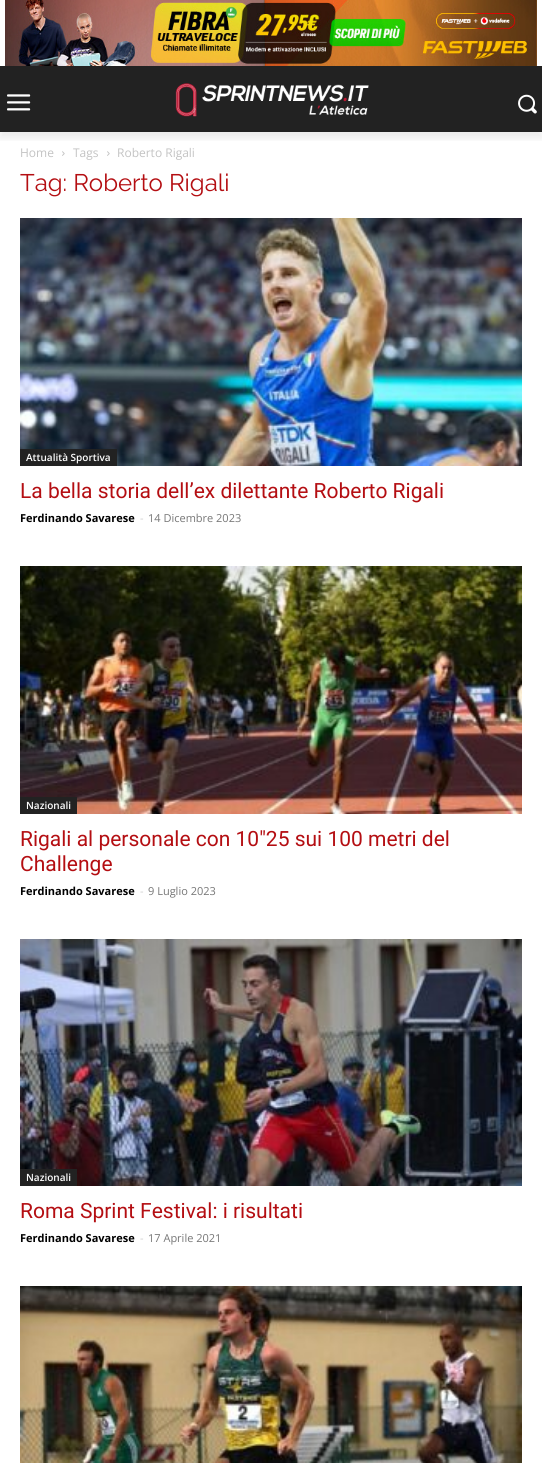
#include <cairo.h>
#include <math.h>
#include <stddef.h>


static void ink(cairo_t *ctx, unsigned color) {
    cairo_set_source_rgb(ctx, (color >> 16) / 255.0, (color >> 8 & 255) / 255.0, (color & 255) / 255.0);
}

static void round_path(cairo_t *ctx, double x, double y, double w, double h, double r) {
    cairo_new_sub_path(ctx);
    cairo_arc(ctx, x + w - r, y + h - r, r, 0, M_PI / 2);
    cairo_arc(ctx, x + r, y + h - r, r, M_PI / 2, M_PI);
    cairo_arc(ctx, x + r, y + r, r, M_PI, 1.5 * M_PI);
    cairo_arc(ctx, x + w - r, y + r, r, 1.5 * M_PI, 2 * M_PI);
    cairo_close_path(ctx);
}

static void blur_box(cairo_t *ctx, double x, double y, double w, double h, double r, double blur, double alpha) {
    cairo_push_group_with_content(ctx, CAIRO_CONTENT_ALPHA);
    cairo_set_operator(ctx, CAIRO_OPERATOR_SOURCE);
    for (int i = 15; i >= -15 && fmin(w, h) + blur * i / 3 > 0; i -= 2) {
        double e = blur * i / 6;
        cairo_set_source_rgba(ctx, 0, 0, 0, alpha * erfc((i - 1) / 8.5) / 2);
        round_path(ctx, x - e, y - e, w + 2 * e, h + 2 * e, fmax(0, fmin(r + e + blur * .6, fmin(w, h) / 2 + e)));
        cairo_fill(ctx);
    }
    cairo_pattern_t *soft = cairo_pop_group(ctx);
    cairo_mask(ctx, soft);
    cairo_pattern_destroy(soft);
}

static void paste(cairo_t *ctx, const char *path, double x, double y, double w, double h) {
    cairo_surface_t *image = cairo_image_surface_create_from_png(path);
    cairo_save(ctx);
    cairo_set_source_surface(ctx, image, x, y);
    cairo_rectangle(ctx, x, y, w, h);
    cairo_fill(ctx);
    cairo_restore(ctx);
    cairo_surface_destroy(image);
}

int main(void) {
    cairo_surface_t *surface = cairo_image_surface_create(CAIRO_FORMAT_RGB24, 542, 1463);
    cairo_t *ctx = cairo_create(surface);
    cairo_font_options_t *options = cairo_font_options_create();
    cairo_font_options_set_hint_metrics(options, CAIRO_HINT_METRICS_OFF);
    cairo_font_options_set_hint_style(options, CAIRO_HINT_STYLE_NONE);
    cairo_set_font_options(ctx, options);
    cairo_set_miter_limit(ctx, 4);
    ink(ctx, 0xFFFFFF);
    cairo_paint(ctx);
    paste(ctx, "media/1.png", 5, 0, 532, 66);
    ink(ctx, 0x222222);
    cairo_rectangle(ctx, 0, 66, 542, 66);
    cairo_fill(ctx);
    paste(ctx, "media/2.png", 7, 94, 24, 17);
    paste(ctx, "media/3.png", 175, 83, 194, 34);
    paste(ctx, "media/4.png", 518, 94, 19, 20);
    cairo_save(ctx);
    cairo_rectangle(ctx, 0, 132, 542, 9);
    cairo_clip(ctx);
    ink(ctx, 0x000000);
    blur_box(ctx, 0, 6, 542, 132, 0, 4, 0.08);
    cairo_restore(ctx);
    cairo_select_font_face(ctx, "Open Sans", CAIRO_FONT_SLANT_NORMAL, CAIRO_FONT_WEIGHT_NORMAL);
    cairo_set_font_size(ctx, 12);
    ink(ctx, 0xC3C3C3);
    cairo_move_to(ctx, 20, 157);
    cairo_show_text(ctx, "Home");
    paste(ctx, "media/5.png", 62, 151, 3, 5);
    cairo_move_to(ctx, 73, 157);
    cairo_show_text(ctx, "Tags");
    paste(ctx, "media/5.png", 107, 151, 3, 5);
    cairo_move_to(ctx, 117, 157);
    cairo_show_text(ctx, "Roberto Rigali");
    cairo_select_font_face(ctx, "Raleway Thin", CAIRO_FONT_SLANT_NORMAL, CAIRO_FONT_WEIGHT_NORMAL);
    cairo_set_font_size(ctx, 24);
    ink(ctx, 0xB40E12);
    cairo_move_to(ctx, 20, 191);
    cairo_show_text(ctx, "Tag: Roberto Rigali");
    paste(ctx, "media/6.png", 20, 218, 502, 248);
    ink(ctx, 0x222222);
    cairo_rectangle(ctx, 20, 449, 97, 17);
    cairo_fill(ctx);
    cairo_select_font_face(ctx, "Open Sans SemiBold", CAIRO_FONT_SLANT_NORMAL, CAIRO_FONT_WEIGHT_NORMAL);
    cairo_set_font_size(ctx, 10);
    ink(ctx, 0xFFFFFF);
    cairo_move_to(ctx, 26, 461);
    cairo_show_text(ctx, "Attualità Sportiva");
    cairo_select_font_face(ctx, "Roboto", CAIRO_FONT_SLANT_NORMAL, CAIRO_FONT_WEIGHT_NORMAL);
    cairo_set_font_size(ctx, 21);
    ink(ctx, 0xB40E12);
    cairo_move_to(ctx, 20, 498);
    cairo_show_text(ctx, "La bella storia dell’ex dilettante Roberto Rigali");
    cairo_select_font_face(ctx, "Open Sans", CAIRO_FONT_SLANT_NORMAL, CAIRO_FONT_WEIGHT_BOLD);
    cairo_set_font_size(ctx, 11);
    ink(ctx, 0x000000);
    cairo_move_to(ctx, 20, 522);
    cairo_show_text(ctx, "Ferdinando Savarese");
    cairo_select_font_face(ctx, "Open Sans", CAIRO_FONT_SLANT_NORMAL, CAIRO_FONT_WEIGHT_NORMAL);
    ink(ctx, 0xCCCCCC);
    cairo_move_to(ctx, 140, 522);
    cairo_show_text(ctx, "-");
    ink(ctx, 0x767676);
    cairo_move_to(ctx, 148, 522);
    cairo_show_text(ctx, "14 Dicembre 2023");
    paste(ctx, "media/7.png", 20, 566, 502, 248);
    ink(ctx, 0x222222);
    cairo_rectangle(ctx, 20, 797, 57, 17);
    cairo_fill(ctx);
    cairo_select_font_face(ctx, "Open Sans SemiBold", CAIRO_FONT_SLANT_NORMAL, CAIRO_FONT_WEIGHT_NORMAL);
    cairo_set_font_size(ctx, 10);
    ink(ctx, 0xFFFFFF);
    cairo_move_to(ctx, 26, 809);
    cairo_show_text(ctx, "Nazionali");
    cairo_select_font_face(ctx, "Roboto", CAIRO_FONT_SLANT_NORMAL, CAIRO_FONT_WEIGHT_NORMAL);
    cairo_set_font_size(ctx, 21);
    ink(ctx, 0xB40E12);
    cairo_move_to(ctx, 20, 846);
    cairo_show_text(ctx, "Rigali al personale con 10″25 sui 100 metri del");
    cairo_move_to(ctx, 20, 871);
    cairo_show_text(ctx, "Challenge");
    cairo_select_font_face(ctx, "Open Sans", CAIRO_FONT_SLANT_NORMAL, CAIRO_FONT_WEIGHT_BOLD);
    cairo_set_font_size(ctx, 11);
    ink(ctx, 0x000000);
    cairo_move_to(ctx, 20, 895);
    cairo_show_text(ctx, "Ferdinando Savarese");
    cairo_select_font_face(ctx, "Open Sans", CAIRO_FONT_SLANT_NORMAL, CAIRO_FONT_WEIGHT_NORMAL);
    ink(ctx, 0xCCCCCC);
    cairo_move_to(ctx, 140, 895);
    cairo_show_text(ctx, "-");
    ink(ctx, 0x767676);
    cairo_move_to(ctx, 148, 895);
    cairo_show_text(ctx, "9 Luglio 2023");
    paste(ctx, "media/8.png", 20, 939, 502, 247);
    ink(ctx, 0x222222);
    cairo_rectangle(ctx, 20, 1169, 57, 17);
    cairo_fill(ctx);
    cairo_select_font_face(ctx, "Open Sans SemiBold", CAIRO_FONT_SLANT_NORMAL, CAIRO_FONT_WEIGHT_NORMAL);
    cairo_set_font_size(ctx, 10);
    ink(ctx, 0xFFFFFF);
    cairo_move_to(ctx, 26, 1181);
    cairo_show_text(ctx, "Nazionali");
    cairo_select_font_face(ctx, "Roboto", CAIRO_FONT_SLANT_NORMAL, CAIRO_FONT_WEIGHT_NORMAL);
    cairo_set_font_size(ctx, 21);
    ink(ctx, 0xB40E12);
    cairo_move_to(ctx, 20, 1218);
    cairo_show_text(ctx, "Roma Sprint Festival: i risultati");
    cairo_select_font_face(ctx, "Open Sans", CAIRO_FONT_SLANT_NORMAL, CAIRO_FONT_WEIGHT_BOLD);
    cairo_set_font_size(ctx, 11);
    ink(ctx, 0x000000);
    cairo_move_to(ctx, 20, 1242);
    cairo_show_text(ctx, "Ferdinando Savarese");
    cairo_select_font_face(ctx, "Open Sans", CAIRO_FONT_SLANT_NORMAL, CAIRO_FONT_WEIGHT_NORMAL);
    ink(ctx, 0xCCCCCC);
    cairo_move_to(ctx, 140, 1242);
    cairo_show_text(ctx, "-");
    ink(ctx, 0x767676);
    cairo_move_to(ctx, 148, 1242);
    cairo_show_text(ctx, "17 Aprile 2021");
    paste(ctx, "media/9.png", 20, 1286, 502, 177);
    cairo_surface_write_to_png(surface, "image.png");
    cairo_font_options_destroy(options);
    cairo_destroy(ctx);
    cairo_surface_destroy(surface);
    return 0;
}
